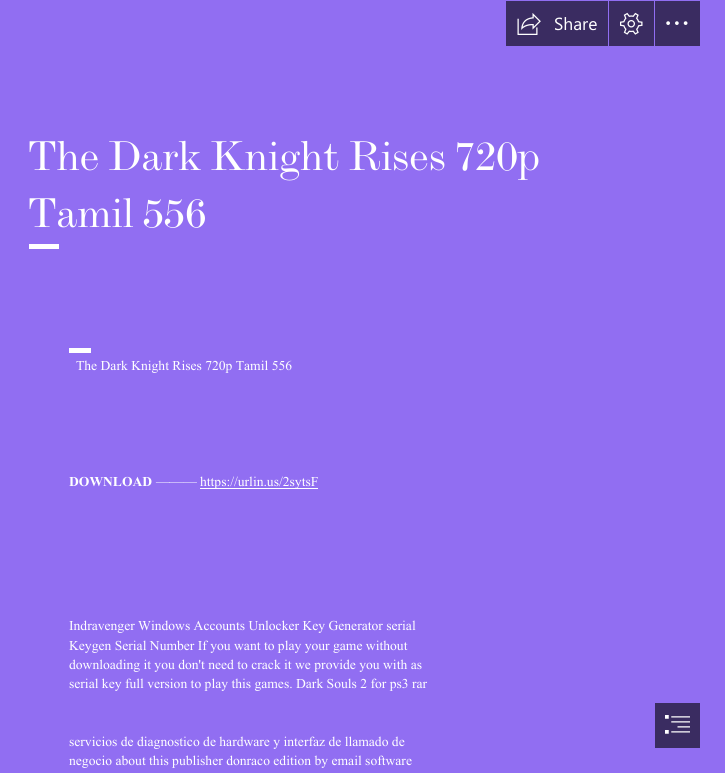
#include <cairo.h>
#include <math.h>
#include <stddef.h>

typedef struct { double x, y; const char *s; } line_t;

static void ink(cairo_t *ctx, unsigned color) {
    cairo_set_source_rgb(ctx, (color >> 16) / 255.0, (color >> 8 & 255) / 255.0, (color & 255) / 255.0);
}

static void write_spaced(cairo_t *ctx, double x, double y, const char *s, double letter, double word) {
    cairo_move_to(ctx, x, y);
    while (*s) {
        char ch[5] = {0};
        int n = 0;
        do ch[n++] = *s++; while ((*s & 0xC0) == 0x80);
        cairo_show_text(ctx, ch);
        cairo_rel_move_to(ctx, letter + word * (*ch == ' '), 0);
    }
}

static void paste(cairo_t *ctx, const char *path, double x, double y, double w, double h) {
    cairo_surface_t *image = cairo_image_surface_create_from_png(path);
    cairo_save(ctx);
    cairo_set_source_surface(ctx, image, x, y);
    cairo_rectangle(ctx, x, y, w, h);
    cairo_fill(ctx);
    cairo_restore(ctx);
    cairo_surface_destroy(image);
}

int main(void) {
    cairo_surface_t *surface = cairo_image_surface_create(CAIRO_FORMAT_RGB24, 725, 773);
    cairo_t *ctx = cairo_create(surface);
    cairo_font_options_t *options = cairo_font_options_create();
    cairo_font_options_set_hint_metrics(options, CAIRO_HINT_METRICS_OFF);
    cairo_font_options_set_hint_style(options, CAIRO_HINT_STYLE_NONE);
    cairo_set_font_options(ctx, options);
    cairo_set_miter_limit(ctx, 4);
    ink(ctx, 0x916EF2);
    cairo_paint(ctx);
    ink(ctx, 0x3A2C61);
    cairo_rectangle(ctx, 506, 1, 102, 45);
    cairo_fill(ctx);
    paste(ctx, "media/1.png", 517, 13, 24, 22);
    cairo_select_font_face(ctx, "Segoe UI", CAIRO_FONT_SLANT_NORMAL, CAIRO_FONT_WEIGHT_NORMAL);
    cairo_set_font_size(ctx, 17.5);
    ink(ctx, 0xFFFFFF);
    cairo_move_to(ctx, 554, 30);
    cairo_show_text(ctx, "Share");
    ink(ctx, 0x3A2C61);
    cairo_rectangle(ctx, 609, 1, 45, 45);
    cairo_fill(ctx);
    paste(ctx, "media/2.png", 620, 12, 23, 23);
    cairo_rectangle(ctx, 655, 1, 45, 45);
    cairo_fill(ctx);
    paste(ctx, "media/3.png", 666, 21, 22, 4);
    cairo_select_font_face(ctx, "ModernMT", CAIRO_FONT_SLANT_NORMAL, CAIRO_FONT_WEIGHT_NORMAL);
    cairo_set_font_size(ctx, 42.5);
    ink(ctx, 0xFFFFFF);
    write_spaced(ctx, 28, 170, "The Dark Knight Rises 720p", -0.6, 0);
    write_spaced(ctx, 28, 227, "Tamil 556", -0.6, 0);
    cairo_rectangle(ctx, 29, 244, 30, 5);
    cairo_fill(ctx);
    cairo_rectangle(ctx, 69, 348, 22, 5);
    cairo_fill(ctx);
    cairo_select_font_face(ctx, "Times New Roman", CAIRO_FONT_SLANT_NORMAL, CAIRO_FONT_WEIGHT_NORMAL);
    cairo_set_font_size(ctx, 13.6);
    cairo_move_to(ctx, 76, 370);
    cairo_show_text(ctx, "The Dark Knight Rises 720p Tamil 556");
    cairo_select_font_face(ctx, "Times New Roman", CAIRO_FONT_SLANT_NORMAL, CAIRO_FONT_WEIGHT_BOLD);
    cairo_move_to(ctx, 69, 486);
    cairo_show_text(ctx, "DOWNLOAD");
    cairo_select_font_face(ctx, "Times New Roman", CAIRO_FONT_SLANT_NORMAL, CAIRO_FONT_WEIGHT_NORMAL);
    cairo_move_to(ctx, 156, 486);
    cairo_show_text(ctx, "———");
    cairo_rectangle(ctx, 200, 488, 118, 1);
    cairo_fill(ctx);
    {
        static const line_t items[] = {
            {200, 486, "https://urlin.us/2sytsF"},
            {69, 630, "Indravenger Windows Accounts Unlocker Key Generator serial"},
            {69, 650, "Keygen Serial Number If you want to play your game without"},
            {69, 669, "downloading it you don't need to crack it we provide you with as"},
            {69, 688, "serial key full version to play this games. Dark Souls 2 for ps3 rar"},
            {69, 746, "servicios de diagnostico de hardware y interfaz de llamado de"},
            {69, 765, "negocio about this publisher donraco edition by email software"},
        };
        for (size_t i = 0; i < sizeof items / sizeof *items; i++) {
            cairo_move_to(ctx, items[i].x, items[i].y);
            cairo_show_text(ctx, items[i].s);
        }
    }
    ink(ctx, 0x3A2C61);
    cairo_rectangle(ctx, 655, 703, 45, 45);
    cairo_fill(ctx);
    paste(ctx, "media/4.png", 665, 715, 25, 19);
    cairo_surface_write_to_png(surface, "image.png");
    cairo_font_options_destroy(options);
    cairo_destroy(ctx);
    cairo_surface_destroy(surface);
    return 0;
}
